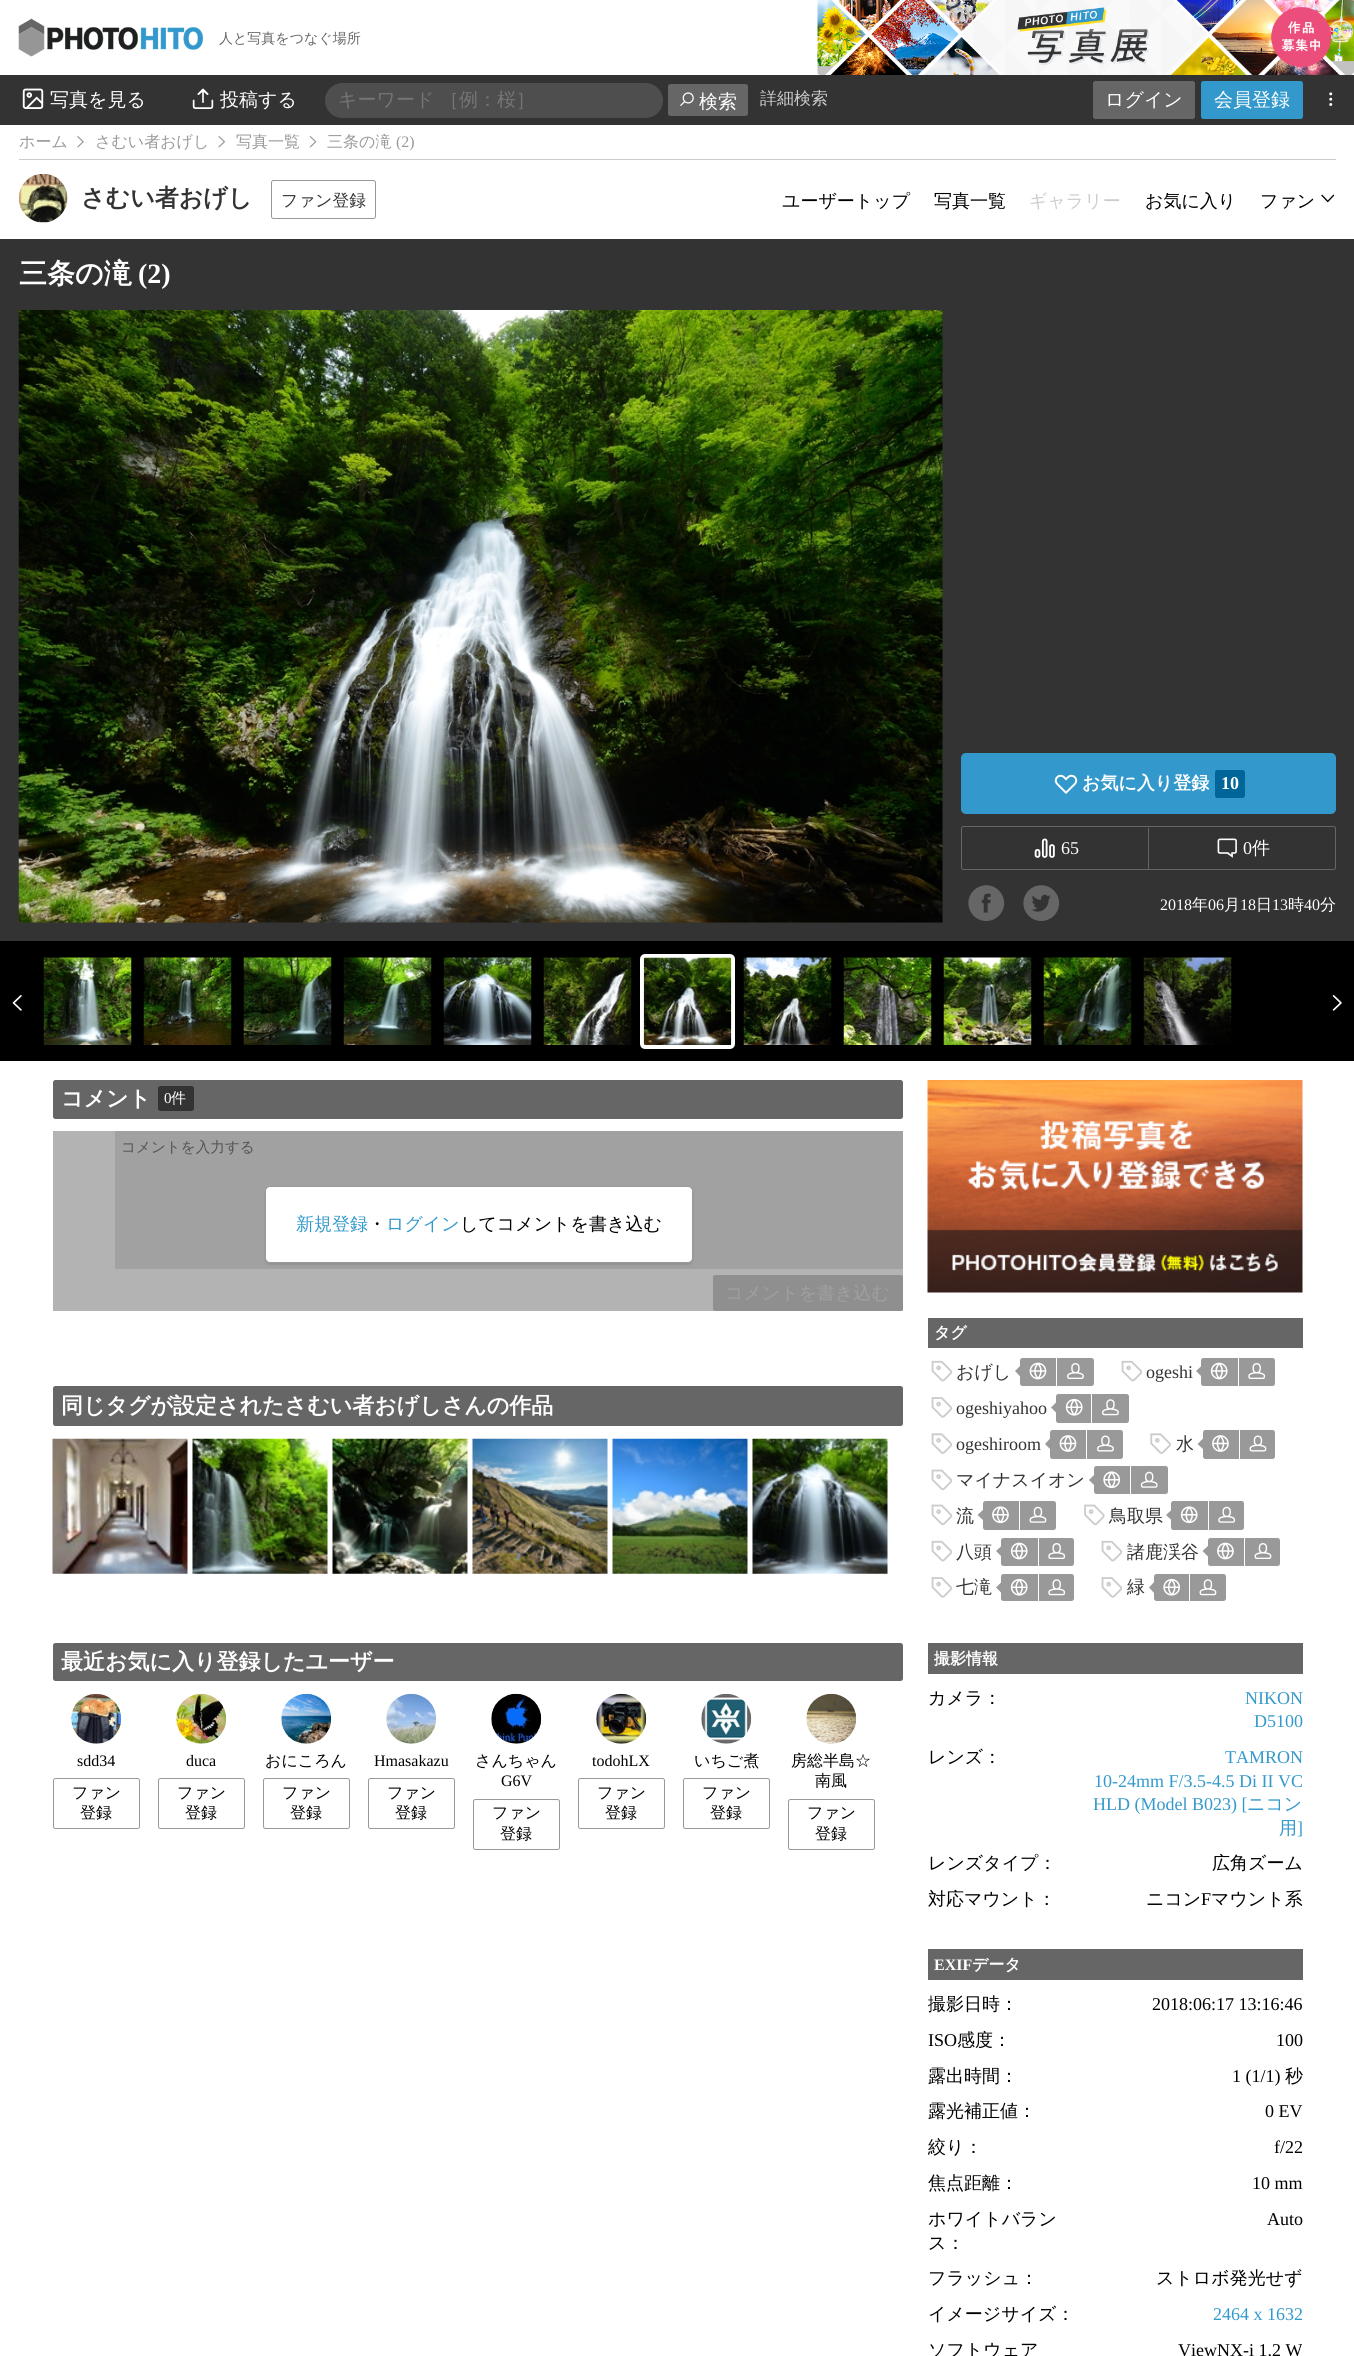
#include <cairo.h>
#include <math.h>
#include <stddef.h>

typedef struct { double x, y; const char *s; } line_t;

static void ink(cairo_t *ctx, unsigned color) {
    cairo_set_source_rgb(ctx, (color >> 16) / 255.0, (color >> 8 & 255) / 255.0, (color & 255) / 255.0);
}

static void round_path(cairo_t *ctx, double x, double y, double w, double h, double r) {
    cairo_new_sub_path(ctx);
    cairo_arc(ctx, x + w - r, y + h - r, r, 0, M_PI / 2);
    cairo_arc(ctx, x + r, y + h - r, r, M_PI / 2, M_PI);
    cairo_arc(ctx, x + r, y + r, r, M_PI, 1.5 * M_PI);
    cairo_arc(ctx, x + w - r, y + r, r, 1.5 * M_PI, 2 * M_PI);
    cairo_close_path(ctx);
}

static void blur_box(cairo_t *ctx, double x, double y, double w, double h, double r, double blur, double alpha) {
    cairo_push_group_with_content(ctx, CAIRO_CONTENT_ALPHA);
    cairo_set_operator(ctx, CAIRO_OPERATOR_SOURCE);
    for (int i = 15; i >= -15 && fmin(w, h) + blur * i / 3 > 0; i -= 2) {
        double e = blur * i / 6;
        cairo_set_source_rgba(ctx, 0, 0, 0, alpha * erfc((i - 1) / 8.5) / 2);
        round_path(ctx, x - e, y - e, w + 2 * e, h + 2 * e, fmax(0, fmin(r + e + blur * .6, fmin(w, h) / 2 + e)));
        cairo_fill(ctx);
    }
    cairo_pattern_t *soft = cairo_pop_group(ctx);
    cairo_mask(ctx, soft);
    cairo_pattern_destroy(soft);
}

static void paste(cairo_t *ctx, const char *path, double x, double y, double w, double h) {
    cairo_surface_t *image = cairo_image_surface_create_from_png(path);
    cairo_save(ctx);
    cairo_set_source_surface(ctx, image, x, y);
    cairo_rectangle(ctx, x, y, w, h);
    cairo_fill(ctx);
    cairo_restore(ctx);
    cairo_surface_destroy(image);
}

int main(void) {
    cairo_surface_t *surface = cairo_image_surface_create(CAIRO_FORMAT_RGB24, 1354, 2356);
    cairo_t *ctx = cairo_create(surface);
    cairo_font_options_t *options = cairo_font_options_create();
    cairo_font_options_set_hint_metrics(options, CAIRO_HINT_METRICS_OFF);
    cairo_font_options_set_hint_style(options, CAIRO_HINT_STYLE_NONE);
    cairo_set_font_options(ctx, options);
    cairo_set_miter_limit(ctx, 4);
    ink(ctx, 0xFFFFFF);
    cairo_paint(ctx);
    ink(ctx, 0xB3B3B3);
    cairo_rectangle(ctx, 53, 1131, 850, 180);
    cairo_fill(ctx);
    paste(ctx, "media/1.png", 18, 18, 185, 39);
    cairo_select_font_face(ctx, "WenQuanYi Zen Hei Medium", CAIRO_FONT_SLANT_NORMAL, CAIRO_FONT_WEIGHT_NORMAL);
    cairo_set_font_size(ctx, 14);
    ink(ctx, 0x666666);
    cairo_move_to(ctx, 219, 43);
    cairo_show_text(ctx, "人と写真をつなぐ場所");
    paste(ctx, "media/2.png", 817, 0, 537, 75);
    ink(ctx, 0x333333);
    cairo_rectangle(ctx, 0, 75, 1354, 50);
    cairo_fill(ctx);
    paste(ctx, "media/3.png", 22, 88, 22, 21);
    cairo_set_font_size(ctx, 19);
    ink(ctx, 0xFFFFFF);
    cairo_move_to(ctx, 50, 106);
    cairo_show_text(ctx, "写真を見る");
    paste(ctx, "media/4.png", 192, 88, 22, 21);
    cairo_move_to(ctx, 220, 106);
    cairo_show_text(ctx, "投稿する");
    ink(ctx, 0x4E4E4E);
    round_path(ctx, 325, 83, 338, 35, 17.5);
    cairo_fill(ctx);
    ink(ctx, 0x757575);
    cairo_move_to(ctx, 338, 106);
    cairo_show_text(ctx, "キーワード ［例：桜］");
    ink(ctx, 0x666666);
    round_path(ctx, 668, 84, 80, 32, 2.5);
    cairo_fill(ctx);
    paste(ctx, "media/5.png", 680, 92, 14, 14);
    ink(ctx, 0xFFFFFF);
    cairo_move_to(ctx, 699, 108);
    cairo_show_text(ctx, "検索");
    cairo_set_font_size(ctx, 17);
    ink(ctx, 0xCCCCCC);
    cairo_move_to(ctx, 760, 104);
    cairo_show_text(ctx, "詳細検索");
    ink(ctx, 0x666666);
    round_path(ctx, 1093, 81, 102, 38, 2.5);
    cairo_fill(ctx);
    cairo_set_font_size(ctx, 19);
    ink(ctx, 0xFFFFFF);
    cairo_move_to(ctx, 1105, 106);
    cairo_show_text(ctx, "ログイン");
    ink(ctx, 0x3399CC);
    round_path(ctx, 1201, 81, 102, 38, 2.5);
    cairo_fill(ctx);
    ink(ctx, 0xFFFFFF);
    cairo_move_to(ctx, 1214, 106);
    cairo_show_text(ctx, "会員登録");
    paste(ctx, "media/6.png", 1329, 92, 4, 14);
    ink(ctx, 0xCCCCCC);
    cairo_rectangle(ctx, 19, 159, 1317, 1);
    cairo_fill(ctx);
    cairo_set_font_size(ctx, 16);
    ink(ctx, 0x999999);
    cairo_move_to(ctx, 19, 147);
    cairo_show_text(ctx, "ホーム");
    paste(ctx, "media/7.png", 77, 136, 7, 12);
    cairo_move_to(ctx, 95, 147);
    cairo_show_text(ctx, "さむい者おげし");
    paste(ctx, "media/8.png", 218, 136, 7, 12);
    cairo_move_to(ctx, 236, 147);
    cairo_show_text(ctx, "写真一覧");
    paste(ctx, "media/9.png", 309, 136, 8, 12);
    cairo_move_to(ctx, 327, 147);
    cairo_show_text(ctx, "三条の滝");
    cairo_select_font_face(ctx, "Liberation Serif", CAIRO_FONT_SLANT_NORMAL, CAIRO_FONT_WEIGHT_NORMAL);
    cairo_move_to(ctx, 396, 147);
    cairo_show_text(ctx, "(2)");
    paste(ctx, "media/10.png", 18, 173, 50, 50);
    cairo_select_font_face(ctx, "WenQuanYi Zen Hei", CAIRO_FONT_SLANT_NORMAL, CAIRO_FONT_WEIGHT_BOLD);
    cairo_set_font_size(ctx, 24);
    ink(ctx, 0x333333);
    cairo_move_to(ctx, 81, 206);
    cairo_show_text(ctx, "さむい者おげし");
    round_path(ctx, 271.5, 180.5, 104, 38, 2);
    ink(ctx, 0x999999);
    cairo_set_line_width(ctx, 1);
    cairo_stroke(ctx);
    cairo_select_font_face(ctx, "WenQuanYi Zen Hei Medium", CAIRO_FONT_SLANT_NORMAL, CAIRO_FONT_WEIGHT_NORMAL);
    cairo_set_font_size(ctx, 16.75);
    ink(ctx, 0x333333);
    cairo_move_to(ctx, 281, 206);
    cairo_show_text(ctx, "ファン登録");
    cairo_set_font_size(ctx, 18);
    ink(ctx, 0x000000);
    cairo_move_to(ctx, 782, 207);
    cairo_show_text(ctx, "ユーザートップ");
    cairo_move_to(ctx, 934, 207);
    cairo_show_text(ctx, "写真一覧");
    ink(ctx, 0xCCCCCC);
    cairo_move_to(ctx, 1029, 207);
    cairo_show_text(ctx, "ギャラリー");
    ink(ctx, 0x000000);
    cairo_move_to(ctx, 1145, 207);
    cairo_show_text(ctx, "お気に入り");
    cairo_move_to(ctx, 1260, 207);
    cairo_show_text(ctx, "ファン");
    paste(ctx, "media/11.png", 1321, 194, 14, 9);
    ink(ctx, 0x333333);
    cairo_rectangle(ctx, 0, 239, 1354, 702);
    cairo_fill(ctx);
    cairo_select_font_face(ctx, "WenQuanYi Zen Hei", CAIRO_FONT_SLANT_NORMAL, CAIRO_FONT_WEIGHT_BOLD);
    cairo_set_font_size(ctx, 28);
    ink(ctx, 0xFFFFFF);
    cairo_move_to(ctx, 19, 283);
    cairo_show_text(ctx, "三条の滝");
    cairo_select_font_face(ctx, "Liberation Serif", CAIRO_FONT_SLANT_NORMAL, CAIRO_FONT_WEIGHT_BOLD);
    cairo_move_to(ctx, 138, 283);
    cairo_show_text(ctx, "(2)");
    paste(ctx, "media/12.png", 18, 310, 925, 613);
    ink(ctx, 0x3399CC);
    round_path(ctx, 961, 753, 375, 61, 5);
    cairo_fill(ctx);
    paste(ctx, "media/13.png", 1054, 774, 24, 20);
    cairo_select_font_face(ctx, "WenQuanYi Zen Hei", CAIRO_FONT_SLANT_NORMAL, CAIRO_FONT_WEIGHT_BOLD);
    cairo_set_font_size(ctx, 18);
    ink(ctx, 0xFFFFFF);
    cairo_move_to(ctx, 1082, 789);
    cairo_show_text(ctx, "お気に入り登録");
    ink(ctx, 0x006699);
    round_path(ctx, 1215, 770, 30, 28, 2.5);
    cairo_fill(ctx);
    cairo_select_font_face(ctx, "Liberation Serif", CAIRO_FONT_SLANT_NORMAL, CAIRO_FONT_WEIGHT_BOLD);
    ink(ctx, 0xFFFFFF);
    cairo_move_to(ctx, 1221, 789);
    cairo_show_text(ctx, "10");
    round_path(ctx, 961.5, 826.5, 374, 43, 2);
    ink(ctx, 0x666666);
    cairo_stroke(ctx);
    paste(ctx, "media/14.png", 1034, 838, 21, 20);
    cairo_select_font_face(ctx, "Liberation Serif", CAIRO_FONT_SLANT_NORMAL, CAIRO_FONT_WEIGHT_NORMAL);
    ink(ctx, 0xFFFFFF);
    cairo_move_to(ctx, 1061, 854);
    cairo_show_text(ctx, "65");
    ink(ctx, 0x666666);
    cairo_rectangle(ctx, 1148, 828, 1, 41);
    cairo_fill(ctx);
    paste(ctx, "media/15.png", 1217, 838, 20, 20);
    ink(ctx, 0xFFFFFF);
    cairo_move_to(ctx, 1243, 854);
    cairo_show_text(ctx, "0");
    cairo_select_font_face(ctx, "WenQuanYi Zen Hei Medium", CAIRO_FONT_SLANT_NORMAL, CAIRO_FONT_WEIGHT_NORMAL);
    cairo_move_to(ctx, 1252, 854);
    cairo_show_text(ctx, "件");
    paste(ctx, "media/16.png", 968, 885, 37, 36);
    paste(ctx, "media/17.png", 1023, 885, 37, 36);
    cairo_select_font_face(ctx, "Liberation Serif", CAIRO_FONT_SLANT_NORMAL, CAIRO_FONT_WEIGHT_NORMAL);
    cairo_set_font_size(ctx, 16);
    cairo_move_to(ctx, 1160, 910);
    cairo_show_text(ctx, "2018");
    cairo_select_font_face(ctx, "WenQuanYi Zen Hei Medium", CAIRO_FONT_SLANT_NORMAL, CAIRO_FONT_WEIGHT_NORMAL);
    cairo_move_to(ctx, 1192, 910);
    cairo_show_text(ctx, "年");
    cairo_select_font_face(ctx, "Liberation Serif", CAIRO_FONT_SLANT_NORMAL, CAIRO_FONT_WEIGHT_NORMAL);
    cairo_move_to(ctx, 1208, 910);
    cairo_show_text(ctx, "06");
    cairo_select_font_face(ctx, "WenQuanYi Zen Hei Medium", CAIRO_FONT_SLANT_NORMAL, CAIRO_FONT_WEIGHT_NORMAL);
    cairo_move_to(ctx, 1224, 910);
    cairo_show_text(ctx, "月");
    cairo_select_font_face(ctx, "Liberation Serif", CAIRO_FONT_SLANT_NORMAL, CAIRO_FONT_WEIGHT_NORMAL);
    cairo_move_to(ctx, 1240, 910);
    cairo_show_text(ctx, "18");
    cairo_select_font_face(ctx, "WenQuanYi Zen Hei Medium", CAIRO_FONT_SLANT_NORMAL, CAIRO_FONT_WEIGHT_NORMAL);
    cairo_move_to(ctx, 1256, 910);
    cairo_show_text(ctx, "日");
    cairo_select_font_face(ctx, "Liberation Serif", CAIRO_FONT_SLANT_NORMAL, CAIRO_FONT_WEIGHT_NORMAL);
    cairo_move_to(ctx, 1272, 910);
    cairo_show_text(ctx, "13");
    cairo_select_font_face(ctx, "WenQuanYi Zen Hei Medium", CAIRO_FONT_SLANT_NORMAL, CAIRO_FONT_WEIGHT_NORMAL);
    cairo_move_to(ctx, 1288, 910);
    cairo_show_text(ctx, "時");
    cairo_select_font_face(ctx, "Liberation Serif", CAIRO_FONT_SLANT_NORMAL, CAIRO_FONT_WEIGHT_NORMAL);
    cairo_move_to(ctx, 1304, 910);
    cairo_show_text(ctx, "40");
    cairo_select_font_face(ctx, "WenQuanYi Zen Hei Medium", CAIRO_FONT_SLANT_NORMAL, CAIRO_FONT_WEIGHT_NORMAL);
    cairo_move_to(ctx, 1320, 910);
    cairo_show_text(ctx, "分");
    ink(ctx, 0x000000);
    cairo_rectangle(ctx, 0, 941, 1354, 120);
    cairo_fill(ctx);
    paste(ctx, "media/18.png", 12, 995, 10, 16);
    paste(ctx, "media/19.png", 43, 957, 89, 88);
    paste(ctx, "media/20.png", 143, 957, 89, 88);
    paste(ctx, "media/21.png", 243, 957, 89, 88);
    paste(ctx, "media/22.png", 343, 957, 89, 88);
    paste(ctx, "media/23.png", 443, 957, 89, 88);
    paste(ctx, "media/24.png", 543, 957, 89, 88);
    round_path(ctx, 642, 956, 91, 91, 3);
    ink(ctx, 0xFFFFFF);
    cairo_set_line_width(ctx, 4);
    cairo_stroke(ctx);
    paste(ctx, "media/25.png", 643, 957, 89, 88);
    paste(ctx, "media/26.png", 743, 957, 89, 88);
    paste(ctx, "media/27.png", 843, 957, 89, 88);
    paste(ctx, "media/28.png", 943, 957, 89, 88);
    paste(ctx, "media/29.png", 1043, 957, 89, 88);
    paste(ctx, "media/30.png", 1143, 957, 89, 88);
    paste(ctx, "media/31.png", 1332, 995, 10, 16);
    ink(ctx, 0x666666);
    round_path(ctx, 53, 1080, 850, 39, 2.5);
    cairo_fill(ctx);
    cairo_select_font_face(ctx, "WenQuanYi Zen Hei", CAIRO_FONT_SLANT_NORMAL, CAIRO_FONT_WEIGHT_BOLD);
    cairo_set_font_size(ctx, 22);
    ink(ctx, 0xFFFFFF);
    cairo_move_to(ctx, 61, 1106);
    cairo_show_text(ctx, "コメント");
    ink(ctx, 0x333333);
    round_path(ctx, 158, 1086, 36, 25, 2.5);
    cairo_fill(ctx);
    cairo_select_font_face(ctx, "Liberation Serif", CAIRO_FONT_SLANT_NORMAL, CAIRO_FONT_WEIGHT_NORMAL);
    cairo_set_font_size(ctx, 15);
    ink(ctx, 0xFFFFFF);
    cairo_move_to(ctx, 164, 1103);
    cairo_show_text(ctx, "0");
    cairo_select_font_face(ctx, "WenQuanYi Zen Hei Medium", CAIRO_FONT_SLANT_NORMAL, CAIRO_FONT_WEIGHT_NORMAL);
    cairo_move_to(ctx, 171, 1103);
    cairo_show_text(ctx, "件");
    ink(ctx, 0xA1A1A1);
    cairo_rectangle(ctx, 115, 1131, 788, 138);
    cairo_fill(ctx);
    cairo_set_font_size(ctx, 14.6);
    ink(ctx, 0x525252);
    cairo_move_to(ctx, 121, 1152);
    cairo_show_text(ctx, "コメントを入力する");
    ink(ctx, 0x000000);
    blur_box(ctx, 265, 1189, 428, 76, 5, 1, 0.1);
    ink(ctx, 0xFFFFFF);
    round_path(ctx, 265.5, 1186.5, 427, 76, 4.5);
    cairo_fill_preserve(ctx);
    ink(ctx, 0x999999);
    cairo_set_line_width(ctx, 1);
    cairo_stroke(ctx);
    cairo_set_font_size(ctx, 18);
    ink(ctx, 0x3399CC);
    cairo_move_to(ctx, 296, 1230);
    cairo_show_text(ctx, "新規登録");
    ink(ctx, 0x000000);
    cairo_move_to(ctx, 368, 1230);
    cairo_show_text(ctx, "・");
    ink(ctx, 0x3399CC);
    cairo_move_to(ctx, 386, 1230);
    cairo_show_text(ctx, "ログイン");
    ink(ctx, 0x000000);
    cairo_move_to(ctx, 460, 1230);
    cairo_show_text(ctx, "してコメントを書き込む");
    ink(ctx, 0x8F8F8F);
    round_path(ctx, 713, 1275, 190, 36, 2.5);
    cairo_fill(ctx);
    ink(ctx, 0xA0A0A0);
    cairo_move_to(ctx, 725, 1299);
    cairo_show_text(ctx, "コメントを書き込む");
    ink(ctx, 0x666666);
    round_path(ctx, 53, 1386, 850, 40, 2.5);
    cairo_fill(ctx);
    cairo_select_font_face(ctx, "WenQuanYi Zen Hei", CAIRO_FONT_SLANT_NORMAL, CAIRO_FONT_WEIGHT_BOLD);
    cairo_set_font_size(ctx, 22);
    ink(ctx, 0xFFFFFF);
    cairo_move_to(ctx, 61, 1413);
    cairo_show_text(ctx, "同じタグが設定されたさむい者おげしさんの作品");
    paste(ctx, "media/32.png", 52, 1438, 136, 136);
    paste(ctx, "media/33.png", 192, 1438, 136, 136);
    paste(ctx, "media/34.png", 332, 1438, 136, 136);
    paste(ctx, "media/35.png", 472, 1438, 136, 136);
    paste(ctx, "media/36.png", 612, 1438, 136, 136);
    paste(ctx, "media/37.png", 752, 1438, 136, 136);
    ink(ctx, 0x666666);
    round_path(ctx, 53, 1643, 850, 38, 2.5);
    cairo_fill(ctx);
    ink(ctx, 0xFFFFFF);
    cairo_move_to(ctx, 61, 1669);
    cairo_show_text(ctx, "最近お気に入り登録したユーザー");
    paste(ctx, "media/38.png", 71, 1693, 51, 51);
    cairo_select_font_face(ctx, "Liberation Serif", CAIRO_FONT_SLANT_NORMAL, CAIRO_FONT_WEIGHT_NORMAL);
    cairo_set_font_size(ctx, 16);
    ink(ctx, 0x000000);
    cairo_move_to(ctx, 77, 1766);
    cairo_show_text(ctx, "sdd34");
    round_path(ctx, 53.5, 1778.5, 86, 50, 2);
    ink(ctx, 0x999999);
    cairo_stroke(ctx);
    cairo_select_font_face(ctx, "WenQuanYi Zen Hei Medium", CAIRO_FONT_SLANT_NORMAL, CAIRO_FONT_WEIGHT_NORMAL);
    ink(ctx, 0x000000);
    cairo_move_to(ctx, 72, 1798);
    cairo_show_text(ctx, "ファン");
    cairo_move_to(ctx, 80, 1818);
    cairo_show_text(ctx, "登録");
    paste(ctx, "media/39.png", 176, 1693, 51, 51);
    cairo_select_font_face(ctx, "Liberation Serif", CAIRO_FONT_SLANT_NORMAL, CAIRO_FONT_WEIGHT_NORMAL);
    cairo_move_to(ctx, 186, 1766);
    cairo_show_text(ctx, "duca");
    round_path(ctx, 158.5, 1778.5, 86, 50, 2);
    ink(ctx, 0x999999);
    cairo_stroke(ctx);
    cairo_select_font_face(ctx, "WenQuanYi Zen Hei Medium", CAIRO_FONT_SLANT_NORMAL, CAIRO_FONT_WEIGHT_NORMAL);
    ink(ctx, 0x000000);
    cairo_move_to(ctx, 177, 1798);
    cairo_show_text(ctx, "ファン");
    cairo_move_to(ctx, 185, 1818);
    cairo_show_text(ctx, "登録");
    paste(ctx, "media/40.png", 281, 1693, 51, 51);
    cairo_move_to(ctx, 265, 1766);
    cairo_show_text(ctx, "おにころん");
    round_path(ctx, 263.5, 1778.5, 86, 50, 2);
    ink(ctx, 0x999999);
    cairo_stroke(ctx);
    ink(ctx, 0x000000);
    cairo_move_to(ctx, 282, 1798);
    cairo_show_text(ctx, "ファン");
    cairo_move_to(ctx, 290, 1818);
    cairo_show_text(ctx, "登録");
    paste(ctx, "media/41.png", 386, 1693, 51, 51);
    cairo_select_font_face(ctx, "Liberation Serif", CAIRO_FONT_SLANT_NORMAL, CAIRO_FONT_WEIGHT_NORMAL);
    cairo_move_to(ctx, 374, 1766);
    cairo_show_text(ctx, "Hmasakazu");
    round_path(ctx, 368.5, 1778.5, 86, 50, 2);
    ink(ctx, 0x999999);
    cairo_stroke(ctx);
    cairo_select_font_face(ctx, "WenQuanYi Zen Hei Medium", CAIRO_FONT_SLANT_NORMAL, CAIRO_FONT_WEIGHT_NORMAL);
    ink(ctx, 0x000000);
    cairo_move_to(ctx, 387, 1798);
    cairo_show_text(ctx, "ファン");
    cairo_move_to(ctx, 395, 1818);
    cairo_show_text(ctx, "登録");
    paste(ctx, "media/42.png", 491, 1693, 51, 51);
    cairo_move_to(ctx, 475, 1766);
    cairo_show_text(ctx, "さんちゃん");
    cairo_select_font_face(ctx, "Liberation Serif", CAIRO_FONT_SLANT_NORMAL, CAIRO_FONT_WEIGHT_NORMAL);
    cairo_move_to(ctx, 501, 1786);
    cairo_show_text(ctx, "G6V");
    round_path(ctx, 473.5, 1799.5, 86, 50, 2);
    ink(ctx, 0x999999);
    cairo_stroke(ctx);
    cairo_select_font_face(ctx, "WenQuanYi Zen Hei Medium", CAIRO_FONT_SLANT_NORMAL, CAIRO_FONT_WEIGHT_NORMAL);
    ink(ctx, 0x000000);
    cairo_move_to(ctx, 492, 1818);
    cairo_show_text(ctx, "ファン");
    cairo_move_to(ctx, 500, 1839);
    cairo_show_text(ctx, "登録");
    paste(ctx, "media/43.png", 596, 1693, 51, 51);
    cairo_select_font_face(ctx, "Liberation Serif", CAIRO_FONT_SLANT_NORMAL, CAIRO_FONT_WEIGHT_NORMAL);
    cairo_move_to(ctx, 592, 1766);
    cairo_show_text(ctx, "todohLX");
    round_path(ctx, 578.5, 1778.5, 86, 50, 2);
    ink(ctx, 0x999999);
    cairo_stroke(ctx);
    cairo_select_font_face(ctx, "WenQuanYi Zen Hei Medium", CAIRO_FONT_SLANT_NORMAL, CAIRO_FONT_WEIGHT_NORMAL);
    ink(ctx, 0x000000);
    cairo_move_to(ctx, 597, 1798);
    cairo_show_text(ctx, "ファン");
    cairo_move_to(ctx, 605, 1818);
    cairo_show_text(ctx, "登録");
    paste(ctx, "media/44.png", 701, 1693, 51, 51);
    cairo_move_to(ctx, 694, 1766);
    cairo_show_text(ctx, "いちご煮");
    round_path(ctx, 683.5, 1778.5, 86, 50, 2);
    ink(ctx, 0x999999);
    cairo_stroke(ctx);
    ink(ctx, 0x000000);
    cairo_move_to(ctx, 702, 1798);
    cairo_show_text(ctx, "ファン");
    cairo_move_to(ctx, 710, 1818);
    cairo_show_text(ctx, "登録");
    paste(ctx, "media/45.png", 806, 1693, 51, 51);
    cairo_move_to(ctx, 791, 1766);
    cairo_show_text(ctx, "房総半島☆");
    cairo_move_to(ctx, 815, 1786);
    cairo_show_text(ctx, "南風");
    round_path(ctx, 788.5, 1799.5, 86, 50, 2);
    ink(ctx, 0x999999);
    cairo_stroke(ctx);
    ink(ctx, 0x000000);
    cairo_move_to(ctx, 807, 1818);
    cairo_show_text(ctx, "ファン");
    cairo_move_to(ctx, 815, 1839);
    cairo_show_text(ctx, "登録");
    paste(ctx, "media/46.png", 927, 1080, 376, 213);
    ink(ctx, 0x666666);
    cairo_rectangle(ctx, 928, 1318, 375, 30);
    cairo_fill(ctx);
    cairo_select_font_face(ctx, "WenQuanYi Zen Hei", CAIRO_FONT_SLANT_NORMAL, CAIRO_FONT_WEIGHT_BOLD);
    ink(ctx, 0xFFFFFF);
    cairo_move_to(ctx, 934, 1338);
    cairo_show_text(ctx, "タグ");
    paste(ctx, "media/47.png", 931, 1360, 22, 22);
    cairo_select_font_face(ctx, "WenQuanYi Zen Hei Medium", CAIRO_FONT_SLANT_NORMAL, CAIRO_FONT_WEIGHT_NORMAL);
    cairo_set_font_size(ctx, 18);
    ink(ctx, 0x333333);
    cairo_move_to(ctx, 956, 1378);
    cairo_show_text(ctx, "おげし");
    ink(ctx, 0x999999);
    round_path(ctx, 1020, 1358, 74, 28, 2.5);
    cairo_fill(ctx);
    cairo_new_path(ctx);
    cairo_move_to(ctx, 1021, 1365);
    cairo_line_to(ctx, 1021, 1377.5);
    cairo_line_to(ctx, 1015, 1371);
    cairo_close_path(ctx);
    cairo_fill(ctx);
    paste(ctx, "media/48.png", 1029, 1362, 18, 18);
    ink(ctx, 0xFFFFFF);
    cairo_rectangle(ctx, 1056, 1358, 1, 28);
    cairo_fill(ctx);
    paste(ctx, "media/49.png", 1067, 1363, 17, 16);
    paste(ctx, "media/47.png", 1121, 1360, 22, 22);
    cairo_select_font_face(ctx, "Liberation Serif", CAIRO_FONT_SLANT_NORMAL, CAIRO_FONT_WEIGHT_NORMAL);
    ink(ctx, 0x333333);
    cairo_move_to(ctx, 1146, 1378);
    cairo_show_text(ctx, "ogeshi");
    ink(ctx, 0x999999);
    round_path(ctx, 1201, 1358, 74, 28, 2.5);
    cairo_fill(ctx);
    cairo_new_path(ctx);
    cairo_move_to(ctx, 1202.5, 1365);
    cairo_line_to(ctx, 1202.5, 1377.5);
    cairo_line_to(ctx, 1196, 1371);
    cairo_close_path(ctx);
    cairo_fill(ctx);
    paste(ctx, "media/50.png", 1210, 1362, 18, 18);
    ink(ctx, 0xFFFFFF);
    cairo_rectangle(ctx, 1238, 1358, 1, 28);
    cairo_fill(ctx);
    paste(ctx, "media/51.png", 1248, 1363, 18, 16);
    paste(ctx, "media/52.png", 931, 1397, 22, 21);
    ink(ctx, 0x333333);
    cairo_move_to(ctx, 956, 1414);
    cairo_show_text(ctx, "ogeshiyahoo");
    ink(ctx, 0x999999);
    round_path(ctx, 1056, 1394, 73, 29, 2.5);
    cairo_fill(ctx);
    cairo_new_path(ctx);
    cairo_move_to(ctx, 1057.5, 1401);
    cairo_line_to(ctx, 1057.5, 1414);
    cairo_line_to(ctx, 1051, 1407.5);
    cairo_close_path(ctx);
    cairo_fill(ctx);
    paste(ctx, "media/53.png", 1065, 1398, 18, 18);
    ink(ctx, 0xFFFFFF);
    cairo_rectangle(ctx, 1091, 1394, 1, 29);
    cairo_fill(ctx);
    paste(ctx, "media/54.png", 1102, 1399, 17, 17);
    paste(ctx, "media/55.png", 931, 1433, 22, 21);
    ink(ctx, 0x333333);
    cairo_move_to(ctx, 956, 1450);
    cairo_show_text(ctx, "ogeshiroom");
    ink(ctx, 0x999999);
    round_path(ctx, 1050, 1430, 73, 29, 2.5);
    cairo_fill(ctx);
    cairo_new_path(ctx);
    cairo_move_to(ctx, 1051, 1437.5);
    cairo_line_to(ctx, 1051, 1450);
    cairo_line_to(ctx, 1045, 1444);
    cairo_close_path(ctx);
    cairo_fill(ctx);
    paste(ctx, "media/56.png", 1059, 1435, 18, 17);
    ink(ctx, 0xFFFFFF);
    cairo_rectangle(ctx, 1086, 1430, 1, 29);
    cairo_fill(ctx);
    paste(ctx, "media/57.png", 1097, 1435, 17, 17);
    paste(ctx, "media/58.png", 1150, 1433, 21, 21);
    cairo_select_font_face(ctx, "WenQuanYi Zen Hei Medium", CAIRO_FONT_SLANT_NORMAL, CAIRO_FONT_WEIGHT_NORMAL);
    ink(ctx, 0x333333);
    cairo_move_to(ctx, 1176, 1450);
    cairo_show_text(ctx, "水");
    ink(ctx, 0x999999);
    round_path(ctx, 1203, 1430, 72, 29, 2.5);
    cairo_fill(ctx);
    cairo_new_path(ctx);
    cairo_move_to(ctx, 1204, 1437.5);
    cairo_line_to(ctx, 1204, 1450);
    cairo_line_to(ctx, 1197.5, 1444);
    cairo_close_path(ctx);
    cairo_fill(ctx);
    paste(ctx, "media/59.png", 1212, 1435, 17, 17);
    ink(ctx, 0xFFFFFF);
    cairo_rectangle(ctx, 1239, 1430, 1, 29);
    cairo_fill(ctx);
    paste(ctx, "media/60.png", 1249, 1435, 18, 17);
    paste(ctx, "media/61.png", 931, 1469, 22, 22);
    ink(ctx, 0x333333);
    cairo_move_to(ctx, 956, 1486);
    cairo_show_text(ctx, "マイナスイオン");
    ink(ctx, 0x999999);
    round_path(ctx, 1094, 1466, 74, 28, 2.5);
    cairo_fill(ctx);
    cairo_new_path(ctx);
    cairo_move_to(ctx, 1095, 1474);
    cairo_line_to(ctx, 1095, 1486);
    cairo_line_to(ctx, 1089, 1480);
    cairo_close_path(ctx);
    cairo_fill(ctx);
    paste(ctx, "media/62.png", 1103, 1471, 17, 18);
    ink(ctx, 0xFFFFFF);
    cairo_rectangle(ctx, 1130, 1466, 1, 28);
    cairo_fill(ctx);
    paste(ctx, "media/63.png", 1140, 1471, 18, 17);
    paste(ctx, "media/61.png", 931, 1504, 22, 22);
    ink(ctx, 0x333333);
    cairo_move_to(ctx, 956, 1522);
    cairo_show_text(ctx, "流");
    ink(ctx, 0x999999);
    round_path(ctx, 983, 1501, 73, 29, 2.5);
    cairo_fill(ctx);
    cairo_new_path(ctx);
    cairo_move_to(ctx, 984, 1509);
    cairo_line_to(ctx, 984, 1521);
    cairo_line_to(ctx, 977.5, 1515);
    cairo_close_path(ctx);
    cairo_fill(ctx);
    paste(ctx, "media/64.png", 992, 1506, 17, 18);
    ink(ctx, 0xFFFFFF);
    cairo_rectangle(ctx, 1019, 1501, 1, 29);
    cairo_fill(ctx);
    paste(ctx, "media/65.png", 1029, 1506, 18, 17);
    paste(ctx, "media/66.png", 1084, 1504, 21, 22);
    ink(ctx, 0x333333);
    cairo_move_to(ctx, 1109, 1522);
    cairo_show_text(ctx, "鳥取県");
    ink(ctx, 0x999999);
    round_path(ctx, 1171, 1501, 73, 29, 2.5);
    cairo_fill(ctx);
    cairo_new_path(ctx);
    cairo_move_to(ctx, 1172.5, 1509);
    cairo_line_to(ctx, 1172.5, 1521);
    cairo_line_to(ctx, 1166, 1515);
    cairo_close_path(ctx);
    cairo_fill(ctx);
    paste(ctx, "media/67.png", 1180, 1506, 18, 18);
    ink(ctx, 0xFFFFFF);
    cairo_rectangle(ctx, 1208, 1501, 1, 29);
    cairo_fill(ctx);
    paste(ctx, "media/68.png", 1218, 1506, 18, 17);
    paste(ctx, "media/47.png", 931, 1540, 22, 22);
    ink(ctx, 0x333333);
    cairo_move_to(ctx, 956, 1558);
    cairo_show_text(ctx, "八頭");
    ink(ctx, 0x999999);
    round_path(ctx, 1001, 1538, 73, 28, 2.5);
    cairo_fill(ctx);
    cairo_new_path(ctx);
    cairo_move_to(ctx, 1002.5, 1545);
    cairo_line_to(ctx, 1002.5, 1557.5);
    cairo_line_to(ctx, 996, 1551);
    cairo_close_path(ctx);
    cairo_fill(ctx);
    paste(ctx, "media/50.png", 1010, 1542, 18, 18);
    ink(ctx, 0xFFFFFF);
    cairo_rectangle(ctx, 1038, 1538, 1, 28);
    cairo_fill(ctx);
    paste(ctx, "media/51.png", 1048, 1543, 18, 16);
    paste(ctx, "media/47.png", 1101, 1540, 22, 22);
    ink(ctx, 0x333333);
    cairo_move_to(ctx, 1127, 1558);
    cairo_show_text(ctx, "諸鹿渓谷");
    ink(ctx, 0x999999);
    round_path(ctx, 1208, 1538, 72, 28, 2.5);
    cairo_fill(ctx);
    cairo_new_path(ctx);
    cairo_move_to(ctx, 1209, 1545);
    cairo_line_to(ctx, 1209, 1557.5);
    cairo_line_to(ctx, 1202.5, 1551);
    cairo_close_path(ctx);
    cairo_fill(ctx);
    paste(ctx, "media/69.png", 1217, 1542, 17, 18);
    ink(ctx, 0xFFFFFF);
    cairo_rectangle(ctx, 1244, 1538, 1, 28);
    cairo_fill(ctx);
    paste(ctx, "media/70.png", 1254, 1543, 18, 16);
    paste(ctx, "media/52.png", 931, 1577, 22, 21);
    ink(ctx, 0x333333);
    cairo_move_to(ctx, 956, 1593);
    cairo_show_text(ctx, "七滝");
    ink(ctx, 0x999999);
    round_path(ctx, 1001, 1574, 73, 27, 2.5);
    cairo_fill(ctx);
    cairo_new_path(ctx);
    cairo_move_to(ctx, 1002.5, 1581);
    cairo_line_to(ctx, 1002.5, 1594);
    cairo_line_to(ctx, 996, 1587.5);
    cairo_close_path(ctx);
    cairo_fill(ctx);
    paste(ctx, "media/53.png", 1010, 1578, 18, 18);
    ink(ctx, 0xFFFFFF);
    cairo_rectangle(ctx, 1038, 1574, 1, 27);
    cairo_fill(ctx);
    paste(ctx, "media/71.png", 1048, 1579, 18, 17);
    paste(ctx, "media/52.png", 1101, 1577, 22, 21);
    ink(ctx, 0x333333);
    cairo_move_to(ctx, 1127, 1593);
    cairo_show_text(ctx, "緑");
    ink(ctx, 0x999999);
    round_path(ctx, 1154, 1574, 72, 27, 2.5);
    cairo_fill(ctx);
    cairo_new_path(ctx);
    cairo_move_to(ctx, 1155, 1581);
    cairo_line_to(ctx, 1155, 1594);
    cairo_line_to(ctx, 1149, 1587.5);
    cairo_close_path(ctx);
    cairo_fill(ctx);
    paste(ctx, "media/72.png", 1163, 1578, 17, 18);
    ink(ctx, 0xFFFFFF);
    cairo_rectangle(ctx, 1189, 1574, 1, 27);
    cairo_fill(ctx);
    paste(ctx, "media/73.png", 1199, 1579, 18, 17);
    ink(ctx, 0x666666);
    cairo_rectangle(ctx, 928, 1643, 375, 31);
    cairo_fill(ctx);
    cairo_select_font_face(ctx, "WenQuanYi Zen Hei", CAIRO_FONT_SLANT_NORMAL, CAIRO_FONT_WEIGHT_BOLD);
    cairo_set_font_size(ctx, 16);
    ink(ctx, 0xFFFFFF);
    cairo_move_to(ctx, 934, 1664);
    cairo_show_text(ctx, "撮影情報");
    cairo_select_font_face(ctx, "WenQuanYi Zen Hei Medium", CAIRO_FONT_SLANT_NORMAL, CAIRO_FONT_WEIGHT_NORMAL);
    cairo_set_font_size(ctx, 18);
    ink(ctx, 0x000000);
    cairo_move_to(ctx, 928, 1704);
    cairo_show_text(ctx, "カメラ：");
    cairo_select_font_face(ctx, "Liberation Serif", CAIRO_FONT_SLANT_NORMAL, CAIRO_FONT_WEIGHT_NORMAL);
    ink(ctx, 0x3399CC);
    cairo_move_to(ctx, 1245, 1704);
    cairo_show_text(ctx, "NIKON");
    cairo_move_to(ctx, 1254, 1727);
    cairo_show_text(ctx, "D5100");
    cairo_select_font_face(ctx, "WenQuanYi Zen Hei Medium", CAIRO_FONT_SLANT_NORMAL, CAIRO_FONT_WEIGHT_NORMAL);
    ink(ctx, 0x000000);
    cairo_move_to(ctx, 928, 1763);
    cairo_show_text(ctx, "レンズ：");
    cairo_select_font_face(ctx, "Liberation Serif", CAIRO_FONT_SLANT_NORMAL, CAIRO_FONT_WEIGHT_NORMAL);
    ink(ctx, 0x3399CC);
    {
        static const line_t items[] = {
            {1225, 1763, "TAMRON"},
            {1094, 1787, "10-24mm F/3.5-4.5 Di II VC"},
            {1093, 1810, "HLD (Model B023) ["},
        };
        for (size_t i = 0; i < sizeof items / sizeof *items; i++) {
            cairo_move_to(ctx, items[i].x, items[i].y);
            cairo_show_text(ctx, items[i].s);
        }
    }
    cairo_select_font_face(ctx, "WenQuanYi Zen Hei Medium", CAIRO_FONT_SLANT_NORMAL, CAIRO_FONT_WEIGHT_NORMAL);
    cairo_move_to(ctx, 1247, 1810);
    cairo_show_text(ctx, "ニコン");
    cairo_move_to(ctx, 1279, 1834);
    cairo_show_text(ctx, "用");
    cairo_select_font_face(ctx, "Liberation Serif", CAIRO_FONT_SLANT_NORMAL, CAIRO_FONT_WEIGHT_NORMAL);
    cairo_move_to(ctx, 1297, 1834);
    cairo_show_text(ctx, "]");
    cairo_select_font_face(ctx, "WenQuanYi Zen Hei Medium", CAIRO_FONT_SLANT_NORMAL, CAIRO_FONT_WEIGHT_NORMAL);
    ink(ctx, 0x000000);
    {
        static const line_t items[] = {
            {928, 1869, "レンズタイプ："},
            {1212, 1869, "広角ズーム"},
            {928, 1905, "対応マウント："},
            {1146, 1905, "ニコン"},
        };
        for (size_t i = 0; i < sizeof items / sizeof *items; i++) {
            cairo_move_to(ctx, items[i].x, items[i].y);
            cairo_show_text(ctx, items[i].s);
        }
    }
    cairo_select_font_face(ctx, "Liberation Serif", CAIRO_FONT_SLANT_NORMAL, CAIRO_FONT_WEIGHT_NORMAL);
    cairo_move_to(ctx, 1201, 1905);
    cairo_show_text(ctx, "F");
    cairo_select_font_face(ctx, "WenQuanYi Zen Hei Medium", CAIRO_FONT_SLANT_NORMAL, CAIRO_FONT_WEIGHT_NORMAL);
    cairo_move_to(ctx, 1211, 1905);
    cairo_show_text(ctx, "マウント系");
    ink(ctx, 0x666666);
    cairo_rectangle(ctx, 928, 1949, 375, 31);
    cairo_fill(ctx);
    cairo_select_font_face(ctx, "Liberation Serif", CAIRO_FONT_SLANT_NORMAL, CAIRO_FONT_WEIGHT_BOLD);
    cairo_set_font_size(ctx, 16);
    ink(ctx, 0xFFFFFF);
    cairo_move_to(ctx, 934, 1970);
    cairo_show_text(ctx, "EXIF");
    cairo_select_font_face(ctx, "WenQuanYi Zen Hei", CAIRO_FONT_SLANT_NORMAL, CAIRO_FONT_WEIGHT_BOLD);
    cairo_move_to(ctx, 972, 1970);
    cairo_show_text(ctx, "データ");
    cairo_select_font_face(ctx, "WenQuanYi Zen Hei Medium", CAIRO_FONT_SLANT_NORMAL, CAIRO_FONT_WEIGHT_NORMAL);
    cairo_set_font_size(ctx, 18);
    ink(ctx, 0x000000);
    cairo_move_to(ctx, 928, 2010);
    cairo_show_text(ctx, "撮影日時：");
    cairo_select_font_face(ctx, "Liberation Serif", CAIRO_FONT_SLANT_NORMAL, CAIRO_FONT_WEIGHT_NORMAL);
    cairo_move_to(ctx, 1152, 2010);
    cairo_show_text(ctx, "2018:06:17 13:16:46");
    cairo_move_to(ctx, 928, 2046);
    cairo_show_text(ctx, "ISO");
    cairo_select_font_face(ctx, "WenQuanYi Zen Hei Medium", CAIRO_FONT_SLANT_NORMAL, CAIRO_FONT_WEIGHT_NORMAL);
    cairo_move_to(ctx, 957, 2046);
    cairo_show_text(ctx, "感度：");
    cairo_select_font_face(ctx, "Liberation Serif", CAIRO_FONT_SLANT_NORMAL, CAIRO_FONT_WEIGHT_NORMAL);
    cairo_move_to(ctx, 1276, 2046);
    cairo_show_text(ctx, "100");
    cairo_select_font_face(ctx, "WenQuanYi Zen Hei Medium", CAIRO_FONT_SLANT_NORMAL, CAIRO_FONT_WEIGHT_NORMAL);
    cairo_move_to(ctx, 928, 2082);
    cairo_show_text(ctx, "露出時間：");
    cairo_select_font_face(ctx, "Liberation Serif", CAIRO_FONT_SLANT_NORMAL, CAIRO_FONT_WEIGHT_NORMAL);
    cairo_move_to(ctx, 1232, 2082);
    cairo_show_text(ctx, "1 (1/1)");
    cairo_select_font_face(ctx, "WenQuanYi Zen Hei Medium", CAIRO_FONT_SLANT_NORMAL, CAIRO_FONT_WEIGHT_NORMAL);
    cairo_move_to(ctx, 1285, 2082);
    cairo_show_text(ctx, "秒");
    cairo_move_to(ctx, 928, 2117);
    cairo_show_text(ctx, "露光補正値：");
    cairo_select_font_face(ctx, "Liberation Serif", CAIRO_FONT_SLANT_NORMAL, CAIRO_FONT_WEIGHT_NORMAL);
    cairo_move_to(ctx, 1265, 2117);
    cairo_show_text(ctx, "0 EV");
    cairo_select_font_face(ctx, "WenQuanYi Zen Hei Medium", CAIRO_FONT_SLANT_NORMAL, CAIRO_FONT_WEIGHT_NORMAL);
    cairo_move_to(ctx, 928, 2153);
    cairo_show_text(ctx, "絞り：");
    cairo_select_font_face(ctx, "Liberation Serif", CAIRO_FONT_SLANT_NORMAL, CAIRO_FONT_WEIGHT_NORMAL);
    cairo_move_to(ctx, 1274, 2153);
    cairo_show_text(ctx, "f/22");
    cairo_select_font_face(ctx, "WenQuanYi Zen Hei Medium", CAIRO_FONT_SLANT_NORMAL, CAIRO_FONT_WEIGHT_NORMAL);
    cairo_move_to(ctx, 928, 2189);
    cairo_show_text(ctx, "焦点距離：");
    cairo_select_font_face(ctx, "Liberation Serif", CAIRO_FONT_SLANT_NORMAL, CAIRO_FONT_WEIGHT_NORMAL);
    cairo_move_to(ctx, 1252, 2189);
    cairo_show_text(ctx, "10 mm");
    cairo_select_font_face(ctx, "WenQuanYi Zen Hei Medium", CAIRO_FONT_SLANT_NORMAL, CAIRO_FONT_WEIGHT_NORMAL);
    cairo_move_to(ctx, 928, 2225);
    cairo_show_text(ctx, "ホワイトバラン");
    cairo_move_to(ctx, 928, 2249);
    cairo_show_text(ctx, "ス：");
    cairo_select_font_face(ctx, "Liberation Serif", CAIRO_FONT_SLANT_NORMAL, CAIRO_FONT_WEIGHT_NORMAL);
    cairo_move_to(ctx, 1267, 2225);
    cairo_show_text(ctx, "Auto");
    cairo_select_font_face(ctx, "WenQuanYi Zen Hei Medium", CAIRO_FONT_SLANT_NORMAL, CAIRO_FONT_WEIGHT_NORMAL);
    {
        static const line_t items[] = {
            {928, 2284, "フラッシュ："},
            {1156, 2284, "ストロボ発光せず"},
            {928, 2320, "イメージサイズ："},
        };
        for (size_t i = 0; i < sizeof items / sizeof *items; i++) {
            cairo_move_to(ctx, items[i].x, items[i].y);
            cairo_show_text(ctx, items[i].s);
        }
    }
    cairo_select_font_face(ctx, "Liberation Serif", CAIRO_FONT_SLANT_NORMAL, CAIRO_FONT_WEIGHT_NORMAL);
    ink(ctx, 0x3399CC);
    cairo_move_to(ctx, 1213, 2320);
    cairo_show_text(ctx, "2464 x 1632");
    cairo_select_font_face(ctx, "WenQuanYi Zen Hei Medium", CAIRO_FONT_SLANT_NORMAL, CAIRO_FONT_WEIGHT_NORMAL);
    ink(ctx, 0x000000);
    cairo_move_to(ctx, 928, 2356);
    cairo_show_text(ctx, "ソフトウェア");
    cairo_select_font_face(ctx, "Liberation Serif", CAIRO_FONT_SLANT_NORMAL, CAIRO_FONT_WEIGHT_NORMAL);
    cairo_move_to(ctx, 1178, 2356);
    cairo_show_text(ctx, "ViewNX-i 1.2 W");
    cairo_surface_write_to_png(surface, "image.png");
    cairo_font_options_destroy(options);
    cairo_destroy(ctx);
    cairo_surface_destroy(surface);
    return 0;
}
